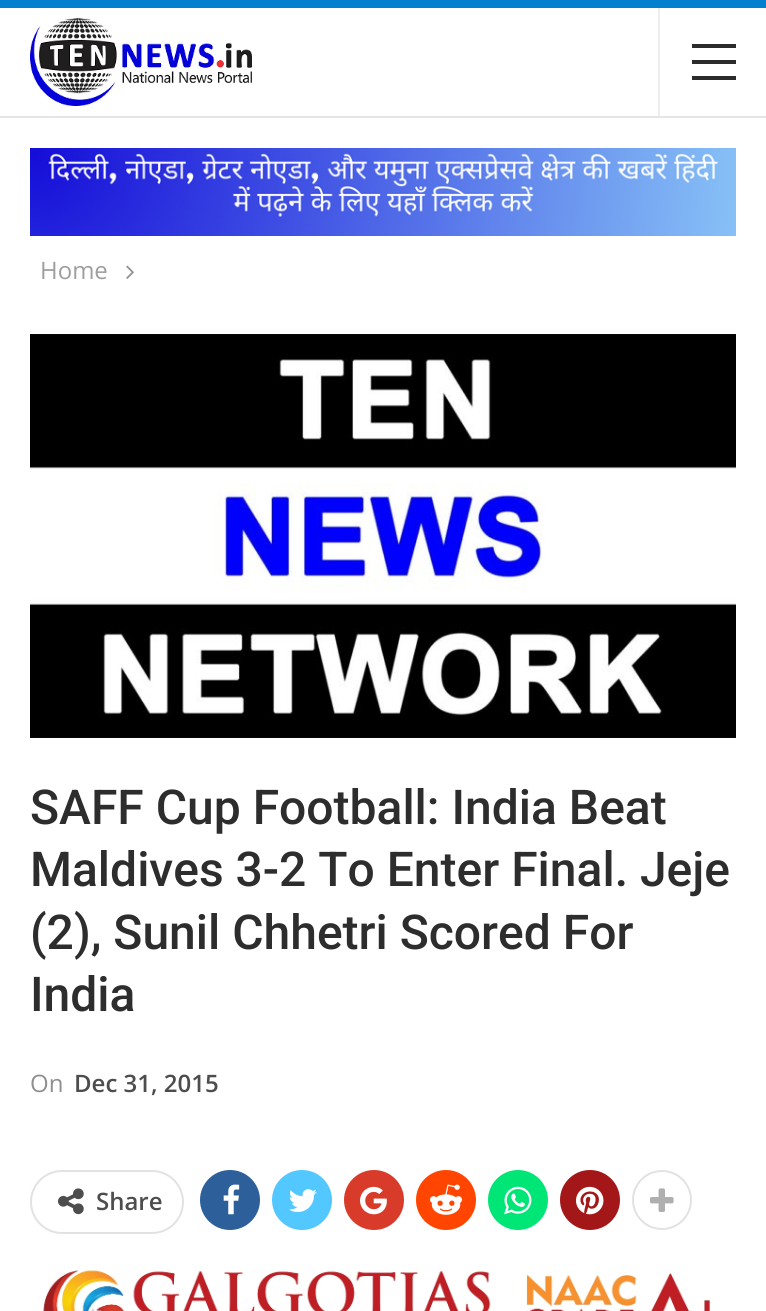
#include <cairo.h>
#include <math.h>
#include <stddef.h>

typedef struct { double x, y; const char *s; } line_t;
typedef struct { double x, y, w, h; unsigned color; } box_t;

static void ink(cairo_t *ctx, unsigned color) {
    cairo_set_source_rgb(ctx, (color >> 16) / 255.0, (color >> 8 & 255) / 255.0, (color & 255) / 255.0);
}

static void round_path(cairo_t *ctx, double x, double y, double w, double h, double r) {
    cairo_new_sub_path(ctx);
    cairo_arc(ctx, x + w - r, y + h - r, r, 0, M_PI / 2);
    cairo_arc(ctx, x + r, y + h - r, r, M_PI / 2, M_PI);
    cairo_arc(ctx, x + r, y + r, r, M_PI, 1.5 * M_PI);
    cairo_arc(ctx, x + w - r, y + r, r, 1.5 * M_PI, 2 * M_PI);
    cairo_close_path(ctx);
}

static void paste(cairo_t *ctx, const char *path, double x, double y, double w, double h) {
    cairo_surface_t *image = cairo_image_surface_create_from_png(path);
    cairo_save(ctx);
    cairo_set_source_surface(ctx, image, x, y);
    cairo_rectangle(ctx, x, y, w, h);
    cairo_fill(ctx);
    cairo_restore(ctx);
    cairo_surface_destroy(image);
}

int main(void) {
    cairo_surface_t *surface = cairo_image_surface_create(CAIRO_FORMAT_RGB24, 766, 1311);
    cairo_t *ctx = cairo_create(surface);
    cairo_font_options_t *options = cairo_font_options_create();
    cairo_font_options_set_hint_metrics(options, CAIRO_HINT_METRICS_OFF);
    cairo_font_options_set_hint_style(options, CAIRO_HINT_STYLE_NONE);
    cairo_set_font_options(ctx, options);
    cairo_set_miter_limit(ctx, 4);
    ink(ctx, 0x0080CE);
    cairo_paint(ctx);
    ink(ctx, 0xFFFFFF);
    cairo_rectangle(ctx, 0, 8, 766, 1303);
    cairo_fill(ctx);
    ink(ctx, 0xE5E5E5);
    cairo_rectangle(ctx, 0, 116, 766, 2);
    cairo_fill(ctx);
    paste(ctx, "media/1.png", 30, 18, 222, 88);
    {
        static const box_t items[] = {
            {658, 8, 2, 108, 0xEDEDED},
            {692, 60, 44, 4, 0x2C2C2C},
            {692, 44, 44, 4, 0x2C2C2C},
            {692, 76, 44, 4, 0x2C2C2C},
        };
        for (size_t i = 0; i < sizeof items / sizeof *items; i++) {
            ink(ctx, items[i].color);
            cairo_rectangle(ctx, items[i].x, items[i].y, items[i].w, items[i].h);
            cairo_fill(ctx);
        }
    }
    paste(ctx, "media/2.png", 30, 148, 706, 88);
    cairo_select_font_face(ctx, "Open Sans", CAIRO_FONT_SLANT_NORMAL, CAIRO_FONT_WEIGHT_NORMAL);
    cairo_set_font_size(ctx, 24);
    ink(ctx, 0x9E9E9E);
    cairo_move_to(ctx, 40, 279);
    cairo_show_text(ctx, "Home");
    paste(ctx, "media/3.png", 126, 265, 8, 14);
    paste(ctx, "media/4.png", 30, 334, 706, 404);
    cairo_select_font_face(ctx, "Roboto Medium", CAIRO_FONT_SLANT_NORMAL, CAIRO_FONT_WEIGHT_NORMAL);
    cairo_set_font_size(ctx, 48);
    ink(ctx, 0x2D2D2D);
    {
        static const line_t items[] = {
            {30, 824, "SAFF Cup Football: India Beat"},
            {30, 886, "Maldives 3-2 To Enter Final. Jeje"},
            {30, 949, "(2), Sunil Chhetri Scored For"},
            {30, 1011, "India"},
        };
        for (size_t i = 0; i < sizeof items / sizeof *items; i++) {
            cairo_move_to(ctx, items[i].x, items[i].y);
            cairo_show_text(ctx, items[i].s);
        }
    }
    cairo_select_font_face(ctx, "Open Sans", CAIRO_FONT_SLANT_NORMAL, CAIRO_FONT_WEIGHT_NORMAL);
    cairo_set_font_size(ctx, 24);
    ink(ctx, 0x8F8F8F);
    cairo_move_to(ctx, 30, 1092);
    cairo_show_text(ctx, "On");
    cairo_select_font_face(ctx, "Open Sans SemiBold", CAIRO_FONT_SLANT_NORMAL, CAIRO_FONT_WEIGHT_NORMAL);
    ink(ctx, 0x4D4D4D);
    cairo_move_to(ctx, 74, 1092);
    cairo_show_text(ctx, "Dec 31, 2015");
    round_path(ctx, 31, 1171, 152, 62, 31);
    ink(ctx, 0xE2E2E2);
    cairo_stroke(ctx);
    paste(ctx, "media/5.png", 58, 1188, 26, 27);
    ink(ctx, 0x4D4D4D);
    cairo_move_to(ctx, 96, 1210);
    cairo_show_text(ctx, "Share");
    ink(ctx, 0x2D5F9A);
    cairo_new_path(ctx);
    cairo_arc(ctx, 230, 1200, 30, 0, 2 * M_PI);
    cairo_fill(ctx);
    paste(ctx, "media/6.png", 223, 1184, 17, 31);
    ink(ctx, 0x53C7FF);
    cairo_arc(ctx, 302, 1200, 30, 0, 2 * M_PI);
    cairo_fill(ctx);
    paste(ctx, "media/7.png", 289, 1189, 28, 23);
    ink(ctx, 0xD93B2B);
    cairo_arc(ctx, 374, 1200, 30, 0, 2 * M_PI);
    cairo_fill(ctx);
    paste(ctx, "media/8.png", 360, 1186, 27, 29);
    ink(ctx, 0xFF4500);
    cairo_arc(ctx, 446, 1200, 30, 0, 2 * M_PI);
    cairo_fill(ctx);
    paste(ctx, "media/9.png", 430, 1184, 32, 31);
    ink(ctx, 0x00E676);
    cairo_arc(ctx, 518, 1200, 30, 0, 2 * M_PI);
    cairo_fill(ctx);
    paste(ctx, "media/10.png", 504, 1186, 28, 29);
    ink(ctx, 0xA41719);
    cairo_arc(ctx, 590, 1200, 30, 0, 2 * M_PI);
    cairo_fill(ctx);
    paste(ctx, "media/11.png", 576, 1186, 28, 29);
    cairo_arc(ctx, 662, 1200, 29, 0, 2 * M_PI);
    ink(ctx, 0xE2E2E2);
    cairo_stroke(ctx);
    paste(ctx, "media/12.png", 650, 1188, 24, 24);
    paste(ctx, "media/13.png", 43, 1270, 668, 41);
    cairo_surface_write_to_png(surface, "image.png");
    cairo_font_options_destroy(options);
    cairo_destroy(ctx);
    cairo_surface_destroy(surface);
    return 0;
}
